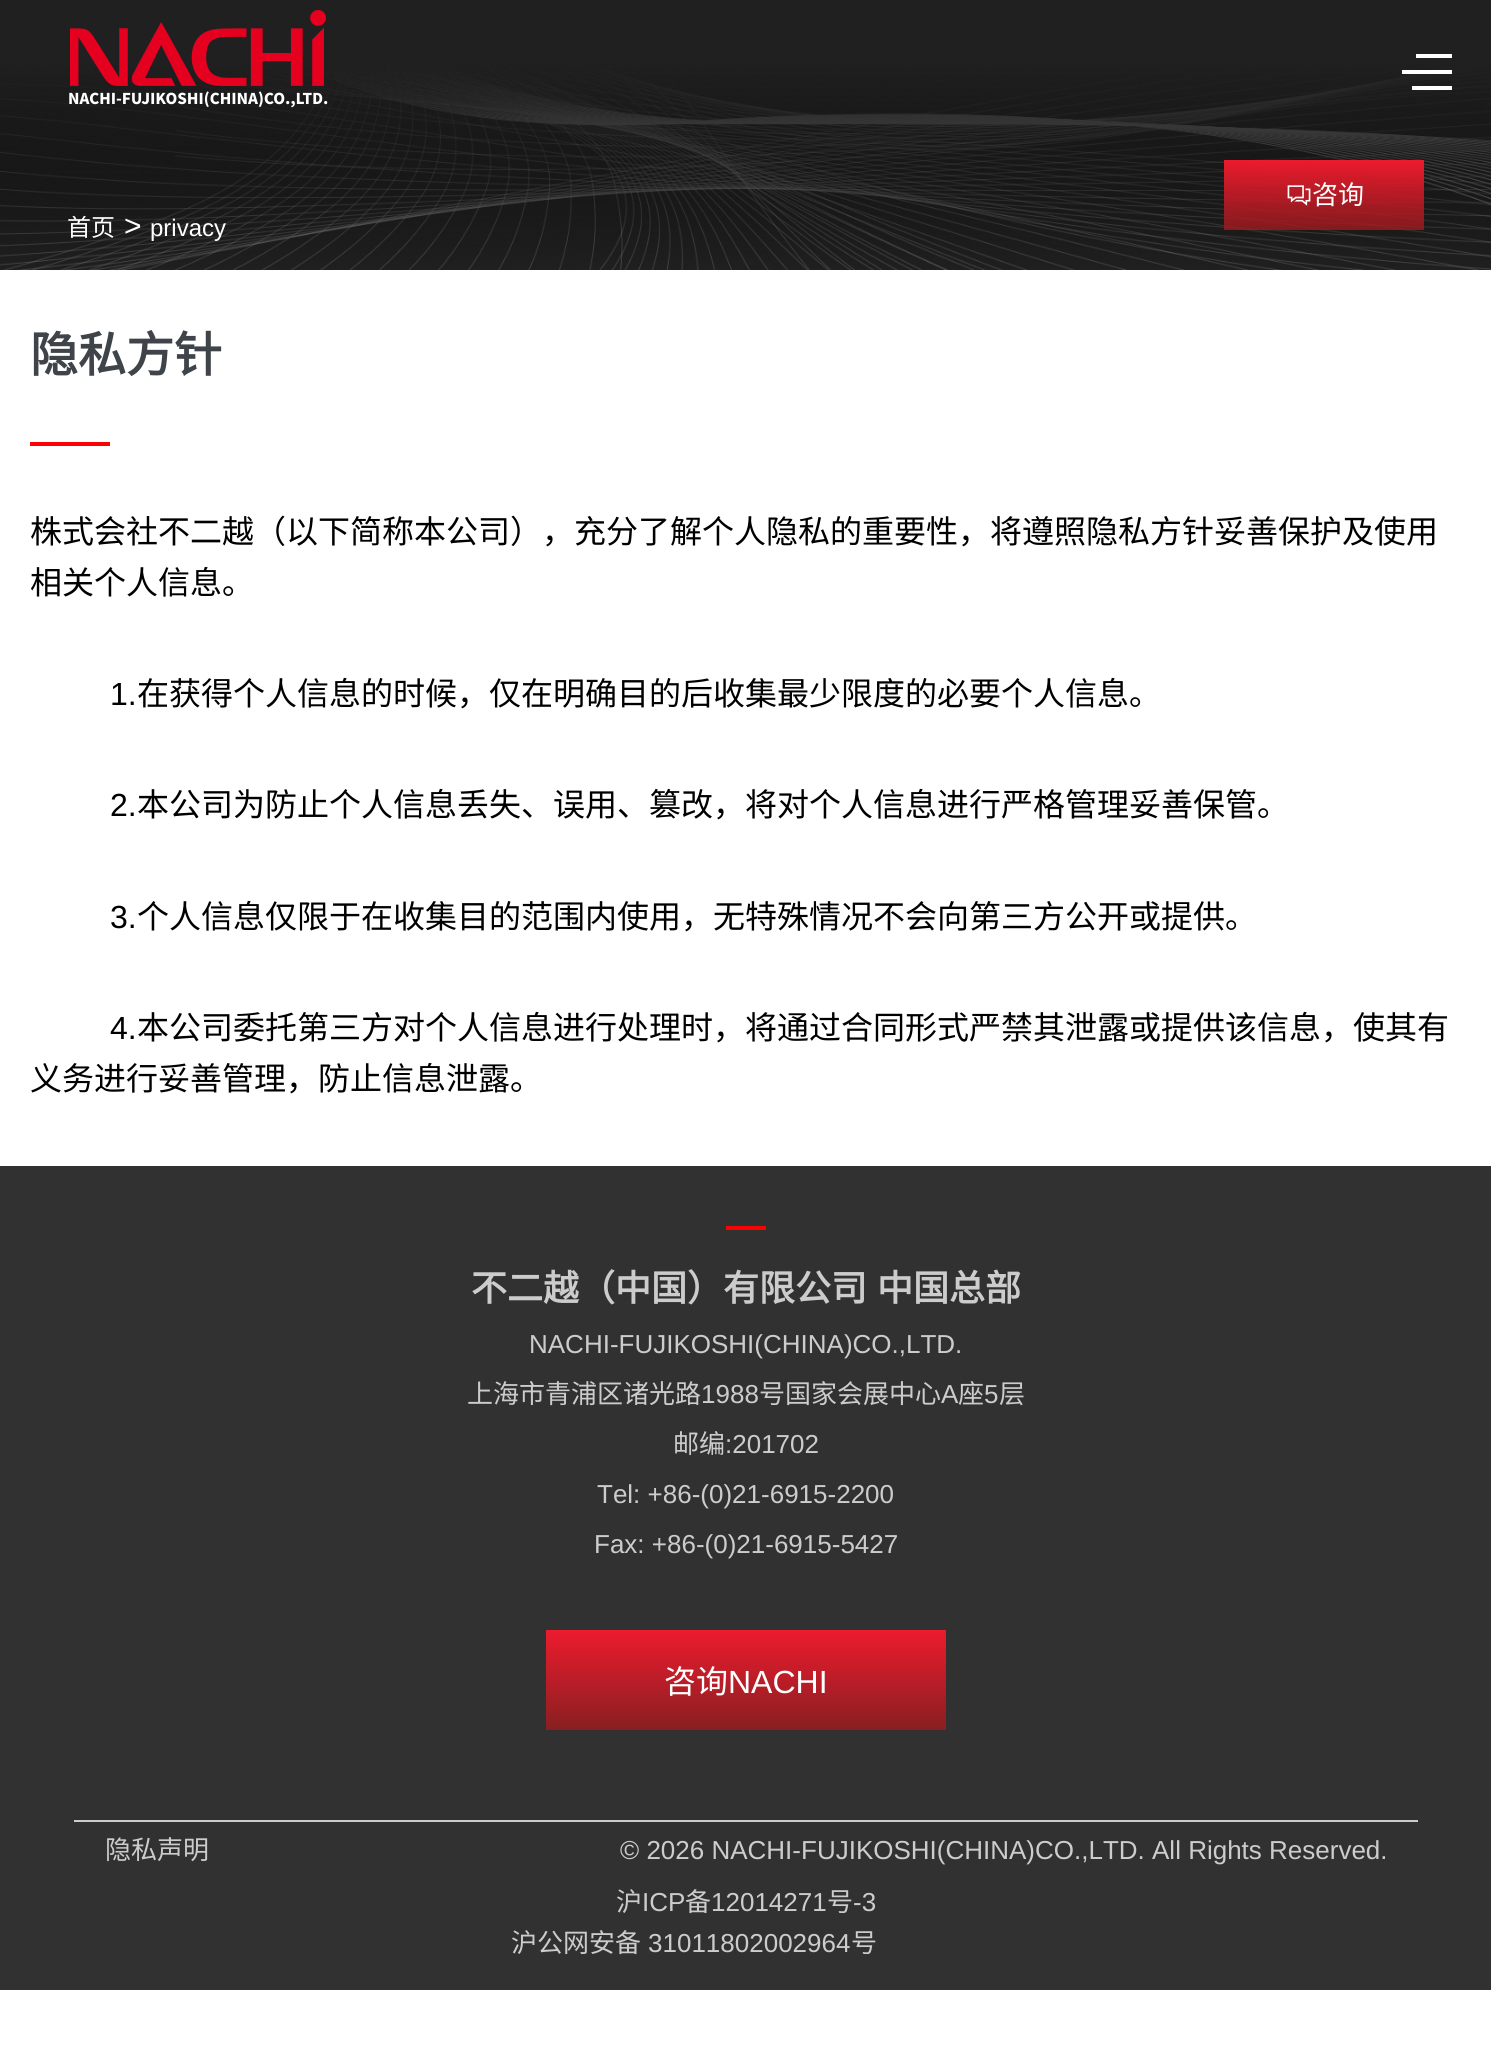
#include <cairo.h>
#include <math.h>
#include <stddef.h>

typedef struct { double x, y; const char *s; } line_t;
typedef struct { double x, y, w, h; unsigned color; } box_t;

static void ink(cairo_t *ctx, unsigned color) {
    cairo_set_source_rgb(ctx, (color >> 16) / 255.0, (color >> 8 & 255) / 255.0, (color & 255) / 255.0);
}

static void write_spaced(cairo_t *ctx, double x, double y, const char *s, double letter, double word) {
    cairo_move_to(ctx, x, y);
    while (*s) {
        char ch[5] = {0};
        int n = 0;
        do ch[n++] = *s++; while ((*s & 0xC0) == 0x80);
        cairo_show_text(ctx, ch);
        cairo_rel_move_to(ctx, letter + word * (*ch == ' '), 0);
    }
}

static void paste(cairo_t *ctx, const char *path, double x, double y, double w, double h) {
    cairo_surface_t *image = cairo_image_surface_create_from_png(path);
    cairo_save(ctx);
    cairo_set_source_surface(ctx, image, x, y);
    cairo_rectangle(ctx, x, y, w, h);
    cairo_fill(ctx);
    cairo_restore(ctx);
    cairo_surface_destroy(image);
}

int main(void) {
    cairo_surface_t *surface = cairo_image_surface_create(CAIRO_FORMAT_RGB24, 1491, 2066);
    cairo_t *ctx = cairo_create(surface);
    cairo_font_options_t *options = cairo_font_options_create();
    cairo_font_options_set_hint_metrics(options, CAIRO_HINT_METRICS_OFF);
    cairo_font_options_set_hint_style(options, CAIRO_HINT_STYLE_NONE);
    cairo_set_font_options(ctx, options);
    cairo_set_miter_limit(ctx, 4);
    cairo_pattern_t *gradient;
    ink(ctx, 0xFFFFFF);
    cairo_paint(ctx);
    paste(ctx, "media/2.png", 0, 0, 1491, 270);
    paste(ctx, "media/1.png", 69, 10, 259, 98);
    {
        static const box_t items[] = {
            {1402, 70, 50, 4, 0xFFFFFF},
            {1416, 54, 36, 4, 0xFFFFFF},
            {1412, 86, 40, 4, 0xFFFFFF},
        };
        for (size_t i = 0; i < sizeof items / sizeof *items; i++) {
            ink(ctx, items[i].color);
            cairo_rectangle(ctx, items[i].x, items[i].y, items[i].w, items[i].h);
            cairo_fill(ctx);
        }
    }
    paste(ctx, "media/3.png", 1287, 185, 24, 21);
    cairo_select_font_face(ctx, "Noto Sans CJK SC", CAIRO_FONT_SLANT_NORMAL, CAIRO_FONT_WEIGHT_NORMAL);
    cairo_set_font_size(ctx, 26);
    cairo_move_to(ctx, 1312, 204);
    cairo_show_text(ctx, "咨询");
    cairo_set_font_size(ctx, 24);
    cairo_move_to(ctx, 67, 236);
    cairo_show_text(ctx, "首页");
    cairo_select_font_face(ctx, "Liberation Sans", CAIRO_FONT_SLANT_NORMAL, CAIRO_FONT_WEIGHT_NORMAL);
    cairo_set_font_size(ctx, 30);
    cairo_move_to(ctx, 124, 236);
    cairo_show_text(ctx, ">");
    cairo_set_font_size(ctx, 24);
    cairo_move_to(ctx, 150, 236);
    cairo_show_text(ctx, "privacy");
    cairo_select_font_face(ctx, "Noto Sans CJK SC", CAIRO_FONT_SLANT_NORMAL, CAIRO_FONT_WEIGHT_BOLD);
    cairo_set_font_size(ctx, 48);
    ink(ctx, 0x3F444A);
    cairo_move_to(ctx, 30, 372);
    cairo_show_text(ctx, "隐私方针");
    ink(ctx, 0xFF0000);
    cairo_rectangle(ctx, 30, 442, 80, 4);
    cairo_fill(ctx);
    cairo_select_font_face(ctx, "Noto Sans CJK SC", CAIRO_FONT_SLANT_NORMAL, CAIRO_FONT_WEIGHT_NORMAL);
    cairo_set_font_size(ctx, 32);
    ink(ctx, 0x000000);
    cairo_move_to(ctx, 30, 543);
    cairo_show_text(ctx, "株式会社不二越（以下简称本公司），充分了解个人隐私的重要性，将遵照隐私方针妥善保护及使用");
    cairo_move_to(ctx, 30, 594);
    cairo_show_text(ctx, "相关个人信息。");
    cairo_select_font_face(ctx, "Liberation Sans", CAIRO_FONT_SLANT_NORMAL, CAIRO_FONT_WEIGHT_NORMAL);
    cairo_move_to(ctx, 110, 705);
    cairo_show_text(ctx, "1.");
    cairo_select_font_face(ctx, "Noto Sans CJK SC", CAIRO_FONT_SLANT_NORMAL, CAIRO_FONT_WEIGHT_NORMAL);
    cairo_move_to(ctx, 137, 705);
    cairo_show_text(ctx, "在获得个人信息的时候，仅在明确目的后收集最少限度的必要个人信息。");
    cairo_select_font_face(ctx, "Liberation Sans", CAIRO_FONT_SLANT_NORMAL, CAIRO_FONT_WEIGHT_NORMAL);
    cairo_move_to(ctx, 110, 816);
    cairo_show_text(ctx, "2.");
    cairo_select_font_face(ctx, "Noto Sans CJK SC", CAIRO_FONT_SLANT_NORMAL, CAIRO_FONT_WEIGHT_NORMAL);
    cairo_move_to(ctx, 137, 816);
    cairo_show_text(ctx, "本公司为防止个人信息丢失、误用、篡改，将对个人信息进行严格管理妥善保管。");
    cairo_select_font_face(ctx, "Liberation Sans", CAIRO_FONT_SLANT_NORMAL, CAIRO_FONT_WEIGHT_NORMAL);
    cairo_move_to(ctx, 110, 928);
    cairo_show_text(ctx, "3.");
    cairo_select_font_face(ctx, "Noto Sans CJK SC", CAIRO_FONT_SLANT_NORMAL, CAIRO_FONT_WEIGHT_NORMAL);
    cairo_move_to(ctx, 137, 928);
    cairo_show_text(ctx, "个人信息仅限于在收集目的范围内使用，无特殊情况不会向第三方公开或提供。");
    cairo_select_font_face(ctx, "Liberation Sans", CAIRO_FONT_SLANT_NORMAL, CAIRO_FONT_WEIGHT_NORMAL);
    cairo_move_to(ctx, 110, 1039);
    cairo_show_text(ctx, "4.");
    cairo_select_font_face(ctx, "Noto Sans CJK SC", CAIRO_FONT_SLANT_NORMAL, CAIRO_FONT_WEIGHT_NORMAL);
    cairo_move_to(ctx, 137, 1039);
    cairo_show_text(ctx, "本公司委托第三方对个人信息进行处理时，将通过合同形式严禁其泄露或提供该信息，使其有");
    cairo_move_to(ctx, 30, 1090);
    cairo_show_text(ctx, "义务进行妥善管理，防止信息泄露。");
    ink(ctx, 0x323132);
    cairo_rectangle(ctx, 0, 1166, 1491, 824);
    cairo_fill(ctx);
    ink(ctx, 0xFF0000);
    cairo_rectangle(ctx, 726, 1226, 40, 4);
    cairo_fill(ctx);
    cairo_select_font_face(ctx, "Noto Sans CJK SC", CAIRO_FONT_SLANT_NORMAL, CAIRO_FONT_WEIGHT_BOLD);
    cairo_set_font_size(ctx, 36);
    ink(ctx, 0xCCCCCC);
    write_spaced(ctx, 471, 1301, "不二越（中国）有限公司 中国总部", 0, 2);
    cairo_select_font_face(ctx, "Liberation Sans", CAIRO_FONT_SLANT_NORMAL, CAIRO_FONT_WEIGHT_NORMAL);
    cairo_set_font_size(ctx, 26);
    cairo_move_to(ctx, 529, 1353);
    cairo_show_text(ctx, "NACHI-FUJIKOSHI(CHINA)CO.,LTD.");
    cairo_select_font_face(ctx, "Noto Sans CJK SC", CAIRO_FONT_SLANT_NORMAL, CAIRO_FONT_WEIGHT_NORMAL);
    cairo_move_to(ctx, 467, 1403);
    cairo_show_text(ctx, "上海市青浦区诸光路");
    cairo_select_font_face(ctx, "Liberation Sans", CAIRO_FONT_SLANT_NORMAL, CAIRO_FONT_WEIGHT_NORMAL);
    cairo_move_to(ctx, 701, 1403);
    cairo_show_text(ctx, "1988");
    cairo_select_font_face(ctx, "Noto Sans CJK SC", CAIRO_FONT_SLANT_NORMAL, CAIRO_FONT_WEIGHT_NORMAL);
    cairo_move_to(ctx, 759, 1403);
    cairo_show_text(ctx, "号国家会展中心");
    cairo_select_font_face(ctx, "Liberation Sans", CAIRO_FONT_SLANT_NORMAL, CAIRO_FONT_WEIGHT_NORMAL);
    cairo_move_to(ctx, 941, 1403);
    cairo_show_text(ctx, "A");
    cairo_select_font_face(ctx, "Noto Sans CJK SC", CAIRO_FONT_SLANT_NORMAL, CAIRO_FONT_WEIGHT_NORMAL);
    cairo_move_to(ctx, 958, 1403);
    cairo_show_text(ctx, "座");
    cairo_select_font_face(ctx, "Liberation Sans", CAIRO_FONT_SLANT_NORMAL, CAIRO_FONT_WEIGHT_NORMAL);
    cairo_move_to(ctx, 984, 1403);
    cairo_show_text(ctx, "5");
    cairo_select_font_face(ctx, "Noto Sans CJK SC", CAIRO_FONT_SLANT_NORMAL, CAIRO_FONT_WEIGHT_NORMAL);
    cairo_move_to(ctx, 999, 1403);
    cairo_show_text(ctx, "层");
    cairo_move_to(ctx, 673, 1453);
    cairo_show_text(ctx, "邮编");
    cairo_select_font_face(ctx, "Liberation Sans", CAIRO_FONT_SLANT_NORMAL, CAIRO_FONT_WEIGHT_NORMAL);
    {
        static const line_t items[] = {
            {725, 1453, ":201702"},
            {597, 1503, "Tel: +86-(0)21-6915-2200"},
            {594, 1553, "Fax: +86-(0)21-6915-5427"},
        };
        for (size_t i = 0; i < sizeof items / sizeof *items; i++) {
            cairo_move_to(ctx, items[i].x, items[i].y);
            cairo_show_text(ctx, items[i].s);
        }
    }
    gradient = cairo_pattern_create_linear(746, 1630, 746, 1730);
    cairo_pattern_add_color_stop_rgba(gradient, 0, 0.929, 0.106, 0.18, 1);
    cairo_pattern_add_color_stop_rgba(gradient, 1, 0.533, 0.122, 0.129, 1);
    cairo_set_source(ctx, gradient);
    cairo_pattern_destroy(gradient);
    cairo_rectangle(ctx, 546, 1630, 400, 100);
    cairo_fill(ctx);
    cairo_select_font_face(ctx, "Noto Sans CJK SC", CAIRO_FONT_SLANT_NORMAL, CAIRO_FONT_WEIGHT_NORMAL);
    cairo_set_font_size(ctx, 32);
    ink(ctx, 0xFFFFFF);
    cairo_move_to(ctx, 664, 1693);
    cairo_show_text(ctx, "咨询");
    cairo_select_font_face(ctx, "Liberation Sans", CAIRO_FONT_SLANT_NORMAL, CAIRO_FONT_WEIGHT_NORMAL);
    cairo_move_to(ctx, 728, 1693);
    cairo_show_text(ctx, "NACHI");
    ink(ctx, 0xCCCCCC);
    cairo_rectangle(ctx, 74, 1820, 1344, 2);
    cairo_fill(ctx);
    cairo_select_font_face(ctx, "Noto Sans CJK SC", CAIRO_FONT_SLANT_NORMAL, CAIRO_FONT_WEIGHT_NORMAL);
    cairo_set_font_size(ctx, 26);
    cairo_move_to(ctx, 105, 1859);
    cairo_show_text(ctx, "隐私声明");
    cairo_select_font_face(ctx, "Liberation Sans", CAIRO_FONT_SLANT_NORMAL, CAIRO_FONT_WEIGHT_NORMAL);
    cairo_move_to(ctx, 620, 1859);
    cairo_show_text(ctx, "© 2026 NACHI-FUJIKOSHI(CHINA)CO.,LTD. All Rights Reserved.");
    cairo_select_font_face(ctx, "Noto Sans CJK SC", CAIRO_FONT_SLANT_NORMAL, CAIRO_FONT_WEIGHT_NORMAL);
    cairo_move_to(ctx, 616, 1911);
    cairo_show_text(ctx, "沪");
    cairo_select_font_face(ctx, "Liberation Sans", CAIRO_FONT_SLANT_NORMAL, CAIRO_FONT_WEIGHT_NORMAL);
    cairo_move_to(ctx, 642, 1911);
    cairo_show_text(ctx, "ICP");
    cairo_select_font_face(ctx, "Noto Sans CJK SC", CAIRO_FONT_SLANT_NORMAL, CAIRO_FONT_WEIGHT_NORMAL);
    cairo_move_to(ctx, 685, 1911);
    cairo_show_text(ctx, "备");
    cairo_select_font_face(ctx, "Liberation Sans", CAIRO_FONT_SLANT_NORMAL, CAIRO_FONT_WEIGHT_NORMAL);
    cairo_move_to(ctx, 711, 1911);
    cairo_show_text(ctx, "12014271");
    cairo_select_font_face(ctx, "Noto Sans CJK SC", CAIRO_FONT_SLANT_NORMAL, CAIRO_FONT_WEIGHT_NORMAL);
    cairo_move_to(ctx, 827, 1911);
    cairo_show_text(ctx, "号");
    cairo_select_font_face(ctx, "Liberation Sans", CAIRO_FONT_SLANT_NORMAL, CAIRO_FONT_WEIGHT_NORMAL);
    cairo_move_to(ctx, 853, 1911);
    cairo_show_text(ctx, "-3");
    cairo_select_font_face(ctx, "Noto Sans CJK SC", CAIRO_FONT_SLANT_NORMAL, CAIRO_FONT_WEIGHT_NORMAL);
    cairo_move_to(ctx, 511, 1952);
    cairo_show_text(ctx, "沪公网安备");
    cairo_select_font_face(ctx, "Liberation Sans", CAIRO_FONT_SLANT_NORMAL, CAIRO_FONT_WEIGHT_NORMAL);
    cairo_move_to(ctx, 648, 1952);
    cairo_show_text(ctx, "31011802002964");
    cairo_select_font_face(ctx, "Noto Sans CJK SC", CAIRO_FONT_SLANT_NORMAL, CAIRO_FONT_WEIGHT_NORMAL);
    cairo_move_to(ctx, 851, 1952);
    cairo_show_text(ctx, "号");
    cairo_surface_write_to_png(surface, "image.png");
    cairo_font_options_destroy(options);
    cairo_destroy(ctx);
    cairo_surface_destroy(surface);
    return 0;
}
